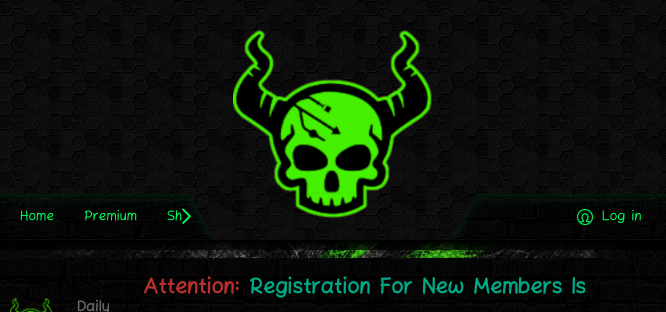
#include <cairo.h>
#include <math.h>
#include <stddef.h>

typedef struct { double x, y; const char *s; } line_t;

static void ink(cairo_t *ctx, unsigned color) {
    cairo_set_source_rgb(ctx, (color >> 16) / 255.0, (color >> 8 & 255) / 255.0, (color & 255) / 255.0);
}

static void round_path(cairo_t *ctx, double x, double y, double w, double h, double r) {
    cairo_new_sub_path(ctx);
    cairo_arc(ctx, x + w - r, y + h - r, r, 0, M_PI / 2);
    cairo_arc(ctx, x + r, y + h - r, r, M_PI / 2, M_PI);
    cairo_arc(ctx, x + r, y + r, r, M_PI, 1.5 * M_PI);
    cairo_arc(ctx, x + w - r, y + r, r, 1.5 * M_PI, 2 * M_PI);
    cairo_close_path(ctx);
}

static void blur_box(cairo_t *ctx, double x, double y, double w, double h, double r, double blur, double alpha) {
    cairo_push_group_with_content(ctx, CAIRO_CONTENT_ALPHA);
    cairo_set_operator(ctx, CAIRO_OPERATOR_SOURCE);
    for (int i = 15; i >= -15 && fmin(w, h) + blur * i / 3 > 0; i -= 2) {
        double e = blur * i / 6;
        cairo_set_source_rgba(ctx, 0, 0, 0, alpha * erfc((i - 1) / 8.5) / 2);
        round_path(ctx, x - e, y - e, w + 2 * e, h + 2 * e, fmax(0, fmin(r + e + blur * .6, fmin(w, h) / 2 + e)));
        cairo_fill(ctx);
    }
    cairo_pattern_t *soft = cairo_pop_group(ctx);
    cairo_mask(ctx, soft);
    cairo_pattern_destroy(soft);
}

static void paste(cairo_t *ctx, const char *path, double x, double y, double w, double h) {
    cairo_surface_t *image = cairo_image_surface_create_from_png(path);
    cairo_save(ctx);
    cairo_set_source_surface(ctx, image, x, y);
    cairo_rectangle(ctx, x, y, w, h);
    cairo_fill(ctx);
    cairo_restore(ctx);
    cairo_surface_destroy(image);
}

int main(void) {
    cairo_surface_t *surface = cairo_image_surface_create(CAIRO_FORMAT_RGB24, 666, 312);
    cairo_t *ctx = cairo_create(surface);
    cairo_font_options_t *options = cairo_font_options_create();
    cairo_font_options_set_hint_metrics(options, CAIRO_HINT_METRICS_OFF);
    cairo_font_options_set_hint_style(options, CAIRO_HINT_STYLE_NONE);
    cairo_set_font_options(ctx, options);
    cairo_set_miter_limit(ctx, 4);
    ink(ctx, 0xFFFFFF);
    cairo_paint(ctx);
    paste(ctx, "media/1.png", 0, 240, 666, 18);
    paste(ctx, "media/2.png", 0, 0, 666, 240);
    paste(ctx, "media/3.png", 233, 29, 199, 190);
    cairo_set_source_rgba(ctx, 0, 0, 0, 0.75);
    cairo_rectangle(ctx, 0, 240, 666, 10);
    cairo_fill(ctx);
    cairo_save(ctx);
    cairo_set_fill_rule(ctx, CAIRO_FILL_RULE_EVEN_ODD);
    cairo_new_path(ctx);
    cairo_move_to(ctx, 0, 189);
    cairo_line_to(ctx, 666, 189);
    cairo_line_to(ctx, 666, 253);
    cairo_line_to(ctx, 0, 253);
    cairo_close_path(ctx);
    cairo_move_to(ctx, 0, 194);
    cairo_line_to(ctx, 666, 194);
    cairo_line_to(ctx, 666, 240);
    cairo_line_to(ctx, 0, 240);
    cairo_close_path(ctx);
    cairo_clip(ctx);
    ink(ctx, 0x000000);
    blur_box(ctx, 0, 198, 666, 46, 0, 2.5, 1);
    cairo_restore(ctx);
    paste(ctx, "media/4.png", 0, 194, 666, 45);
    cairo_select_font_face(ctx, "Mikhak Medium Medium", CAIRO_FONT_SLANT_NORMAL, CAIRO_FONT_WEIGHT_NORMAL);
    cairo_set_font_size(ctx, 14);
    ink(ctx, 0x00FF60);
    {
        static const line_t items[] = {
            {20, 220, "Home"},
            {84, 220, "Premium"},
            {167, 220, "Sh"},
        };
        for (size_t i = 0; i < sizeof items / sizeof *items; i++) {
            cairo_move_to(ctx, items[i].x, items[i].y);
            cairo_show_text(ctx, items[i].s);
        }
    }
    paste(ctx, "media/5.png", 182, 208, 9, 16);
    paste(ctx, "media/6.png", 577, 209, 16, 16);
    cairo_move_to(ctx, 602, 220);
    cairo_show_text(ctx, "Log in");
    ink(ctx, 0x000000);
    blur_box(ctx, 0, 262, 666, 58, 0, 2.5, 1);
    paste(ctx, "media/7.png", 0, 258, 666, 54);
    cairo_select_font_face(ctx, "Mikhak Medium", CAIRO_FONT_SLANT_NORMAL, CAIRO_FONT_WEIGHT_BOLD);
    cairo_set_font_size(ctx, 22);
    ink(ctx, 0xB8312F);
    cairo_move_to(ctx, 143, 293);
    cairo_show_text(ctx, "Attention:");
    ink(ctx, 0x00A885);
    cairo_move_to(ctx, 249, 293);
    cairo_show_text(ctx, "Registration For New Members Is");
    paste(ctx, "media/8.png", 10, 298, 42, 14);
    ink(ctx, 0x000000);
    cairo_rectangle(ctx, 127, 257, 1, 55);
    cairo_fill(ctx);
    cairo_rectangle(ctx, 60, 257, 1, 55);
    cairo_fill(ctx);
    cairo_set_font_size(ctx, 15);
    ink(ctx, 0x666666);
    cairo_move_to(ctx, 77, 311);
    cairo_show_text(ctx, "Daily");
    cairo_surface_write_to_png(surface, "image.png");
    cairo_font_options_destroy(options);
    cairo_destroy(ctx);
    cairo_surface_destroy(surface);
    return 0;
}
